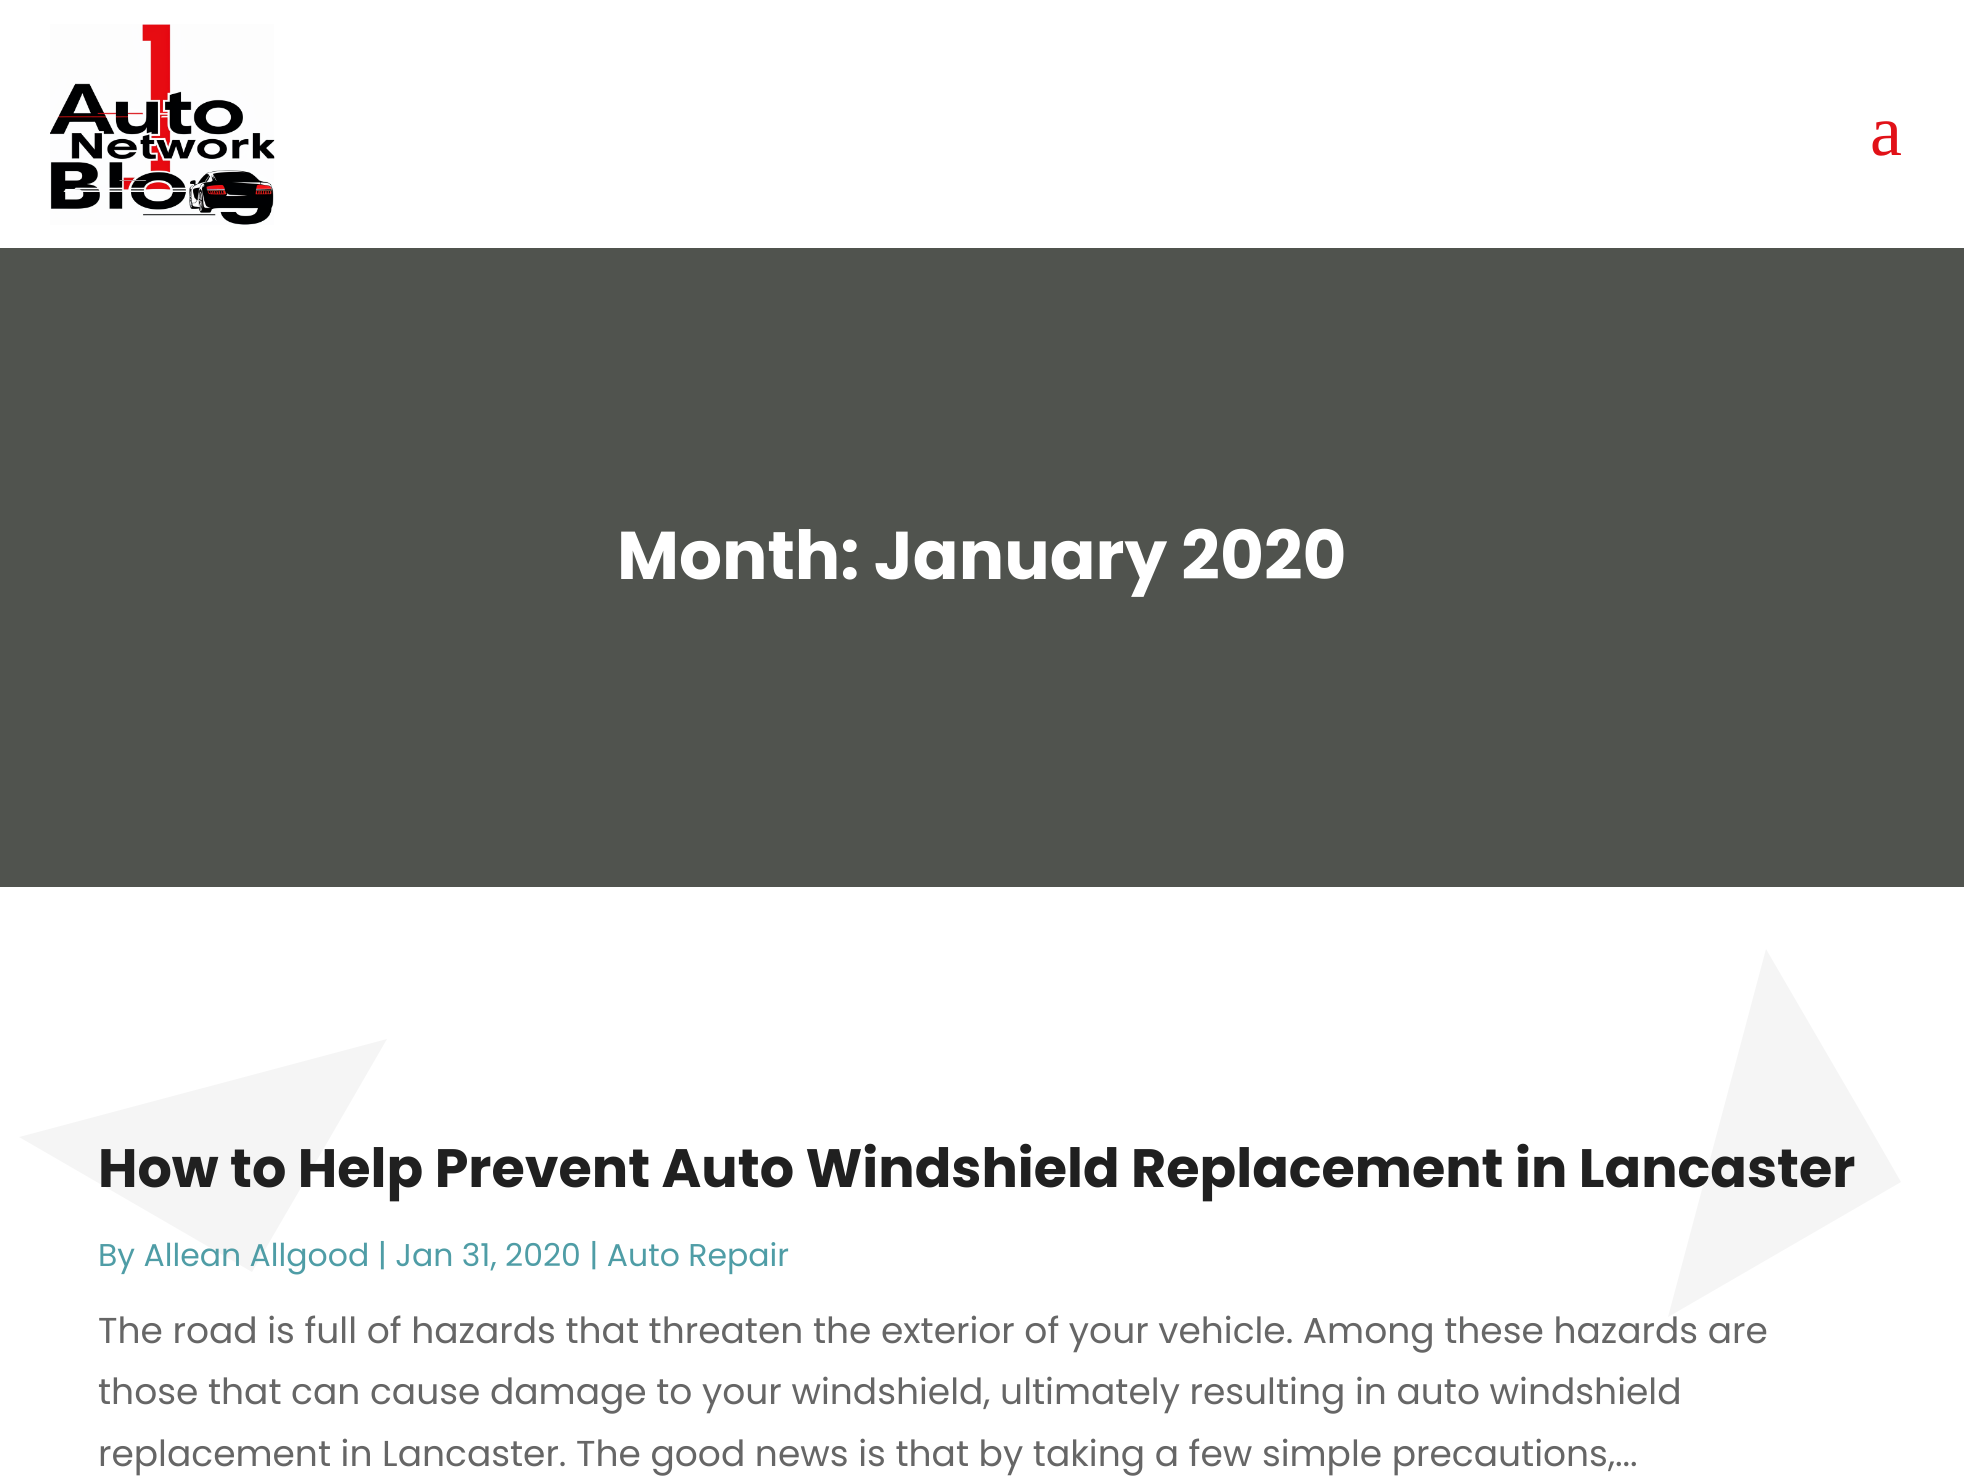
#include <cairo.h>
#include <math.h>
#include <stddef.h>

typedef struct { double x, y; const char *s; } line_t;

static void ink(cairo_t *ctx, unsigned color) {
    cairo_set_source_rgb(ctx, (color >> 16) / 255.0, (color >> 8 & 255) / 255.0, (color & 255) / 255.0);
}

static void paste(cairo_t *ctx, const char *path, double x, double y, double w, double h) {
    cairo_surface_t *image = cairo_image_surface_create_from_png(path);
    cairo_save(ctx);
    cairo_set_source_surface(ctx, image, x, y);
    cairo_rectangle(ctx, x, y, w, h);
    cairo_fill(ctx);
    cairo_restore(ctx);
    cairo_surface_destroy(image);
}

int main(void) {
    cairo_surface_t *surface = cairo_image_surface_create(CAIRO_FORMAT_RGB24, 1964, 1480);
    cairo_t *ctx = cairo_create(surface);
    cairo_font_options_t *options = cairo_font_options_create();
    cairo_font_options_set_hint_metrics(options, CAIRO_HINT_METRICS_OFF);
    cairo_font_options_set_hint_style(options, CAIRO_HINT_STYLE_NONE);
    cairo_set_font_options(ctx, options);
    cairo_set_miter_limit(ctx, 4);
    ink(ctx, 0xFFFFFF);
    cairo_paint(ctx);
    paste(ctx, "media/1.png", 50, 24, 225, 201);
    cairo_select_font_face(ctx, "Liberation Serif", CAIRO_FONT_SLANT_NORMAL, CAIRO_FONT_WEIGHT_NORMAL);
    cairo_set_font_size(ctx, 72);
    ink(ctx, 0xE11118);
    cairo_move_to(ctx, 1870, 155);
    cairo_show_text(ctx, "a");
    ink(ctx, 0x50534E);
    cairo_rectangle(ctx, 0, 248, 1964, 639);
    cairo_fill(ctx);
    cairo_select_font_face(ctx, "Poppins", CAIRO_FONT_SLANT_NORMAL, CAIRO_FONT_WEIGHT_BOLD);
    cairo_set_font_size(ctx, 67.5);
    ink(ctx, 0xFFFFFF);
    cairo_move_to(ctx, 617, 579);
    cairo_show_text(ctx, "Month: January 2020");
    ink(ctx, 0xF5F5F5);
    cairo_new_path(ctx);
    cairo_move_to(ctx, 309, 1174);
    cairo_line_to(ctx, 252, 1272);
    cairo_line_to(ctx, 19, 1137);
    cairo_line_to(ctx, 387, 1039);
    cairo_close_path(ctx);
    cairo_fill(ctx);
    cairo_new_path(ctx);
    cairo_move_to(ctx, 1866, 1121);
    cairo_line_to(ctx, 1766, 949);
    cairo_line_to(ctx, 1668, 1317);
    cairo_line_to(ctx, 1901, 1182);
    cairo_close_path(ctx);
    cairo_fill(ctx);
    cairo_set_font_size(ctx, 54);
    ink(ctx, 0x202020);
    cairo_move_to(ctx, 98, 1187);
    cairo_show_text(ctx, "How to Help Prevent Auto Windshield Replacement in Lancaster");
    cairo_select_font_face(ctx, "Poppins", CAIRO_FONT_SLANT_NORMAL, CAIRO_FONT_WEIGHT_NORMAL);
    cairo_set_font_size(ctx, 31.5);
    ink(ctx, 0x4F9DA6);
    cairo_move_to(ctx, 98, 1266);
    cairo_show_text(ctx, "By Allean Allgood | Jan 31, 2020 | Auto Repair");
    cairo_set_font_size(ctx, 36);
    ink(ctx, 0x666666);
    {
        static const line_t items[] = {
            {98, 1343, "The road is full of hazards that threaten the exterior of your vehicle. Among these hazards are"},
            {98, 1404, "those that can cause damage to your windshield, ultimately resulting in auto windshield"},
            {98, 1466, "replacement in Lancaster. The good news is that by taking a few simple precautions,..."},
        };
        for (size_t i = 0; i < sizeof items / sizeof *items; i++) {
            cairo_move_to(ctx, items[i].x, items[i].y);
            cairo_show_text(ctx, items[i].s);
        }
    }
    cairo_surface_write_to_png(surface, "image.png");
    cairo_font_options_destroy(options);
    cairo_destroy(ctx);
    cairo_surface_destroy(surface);
    return 0;
}
